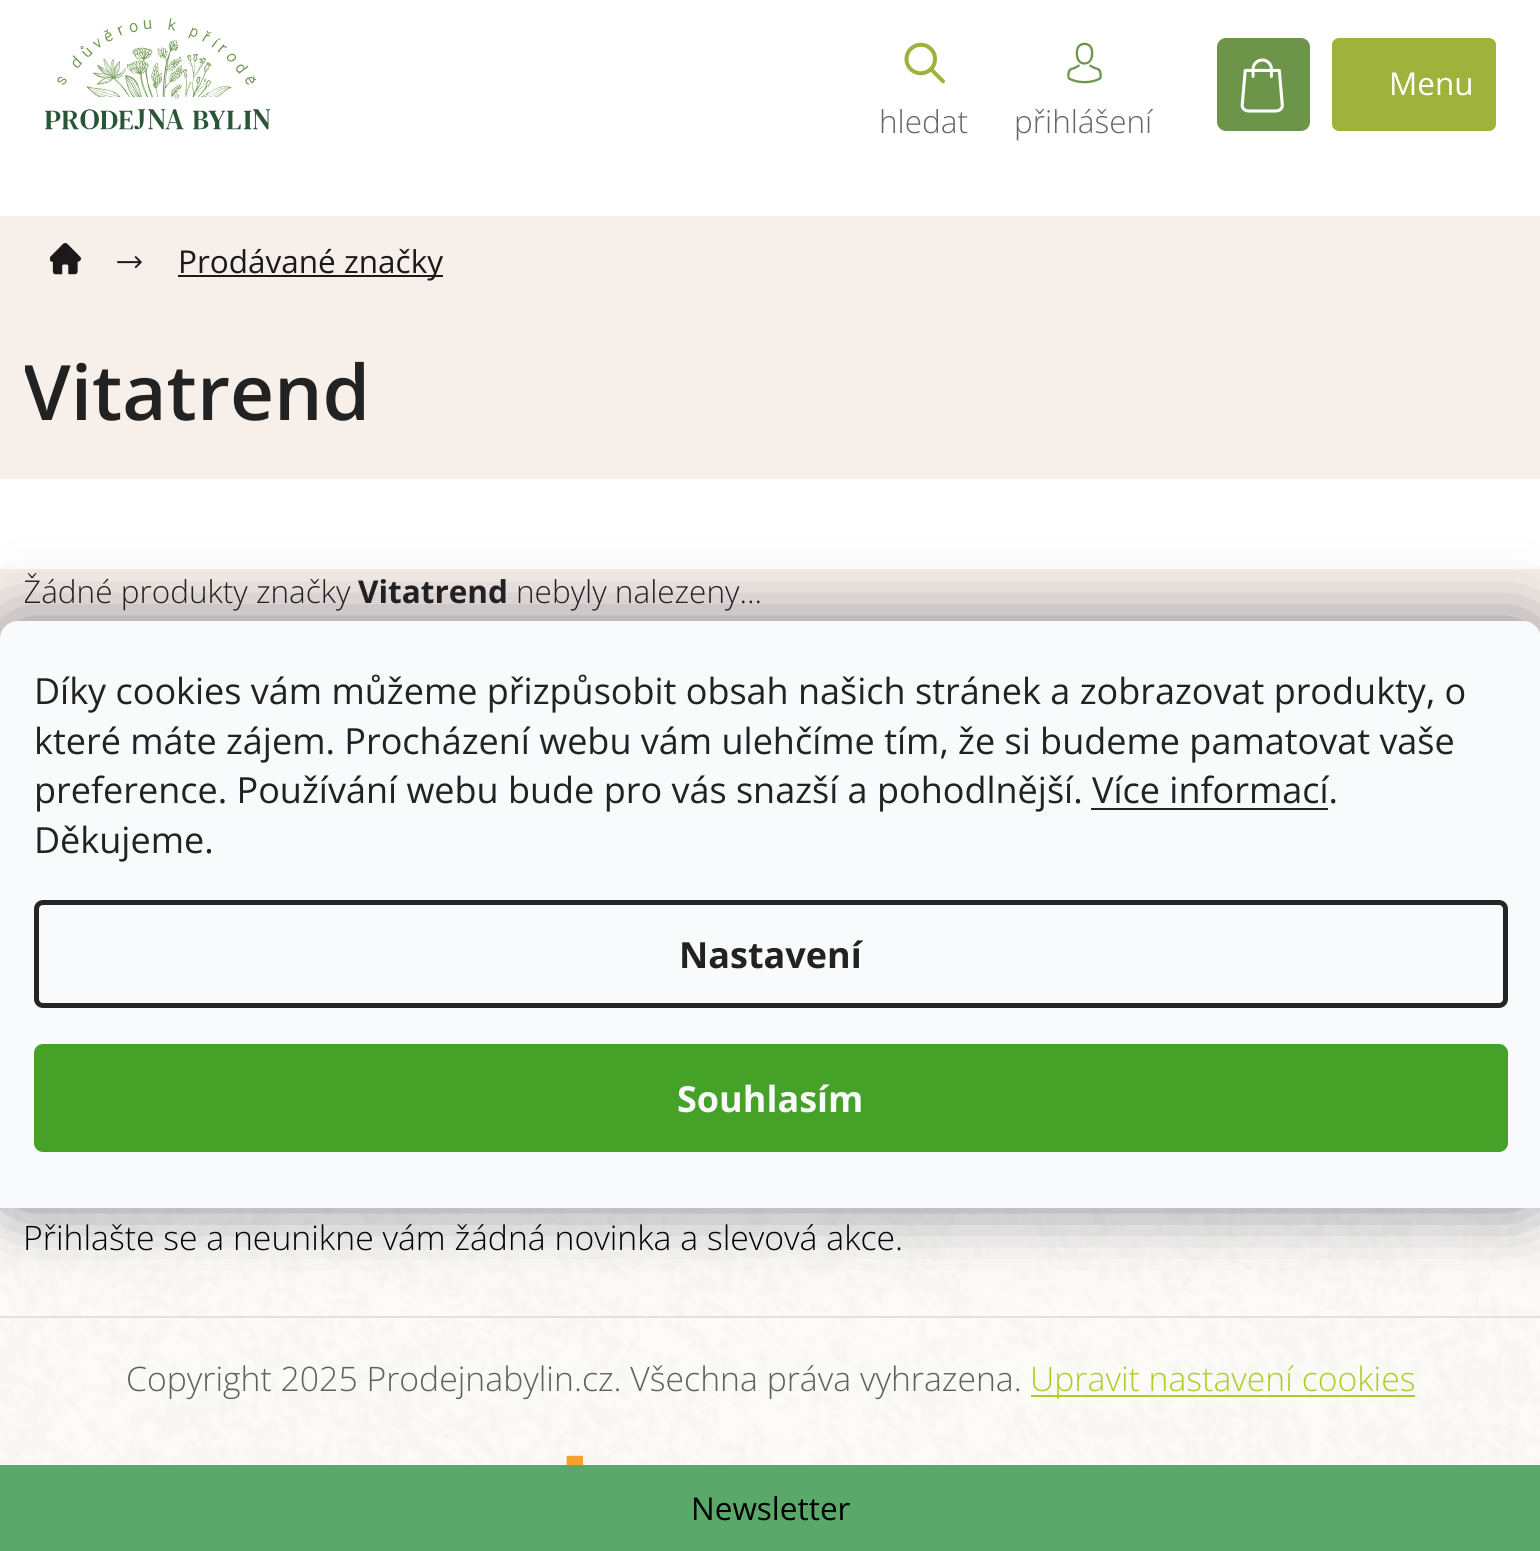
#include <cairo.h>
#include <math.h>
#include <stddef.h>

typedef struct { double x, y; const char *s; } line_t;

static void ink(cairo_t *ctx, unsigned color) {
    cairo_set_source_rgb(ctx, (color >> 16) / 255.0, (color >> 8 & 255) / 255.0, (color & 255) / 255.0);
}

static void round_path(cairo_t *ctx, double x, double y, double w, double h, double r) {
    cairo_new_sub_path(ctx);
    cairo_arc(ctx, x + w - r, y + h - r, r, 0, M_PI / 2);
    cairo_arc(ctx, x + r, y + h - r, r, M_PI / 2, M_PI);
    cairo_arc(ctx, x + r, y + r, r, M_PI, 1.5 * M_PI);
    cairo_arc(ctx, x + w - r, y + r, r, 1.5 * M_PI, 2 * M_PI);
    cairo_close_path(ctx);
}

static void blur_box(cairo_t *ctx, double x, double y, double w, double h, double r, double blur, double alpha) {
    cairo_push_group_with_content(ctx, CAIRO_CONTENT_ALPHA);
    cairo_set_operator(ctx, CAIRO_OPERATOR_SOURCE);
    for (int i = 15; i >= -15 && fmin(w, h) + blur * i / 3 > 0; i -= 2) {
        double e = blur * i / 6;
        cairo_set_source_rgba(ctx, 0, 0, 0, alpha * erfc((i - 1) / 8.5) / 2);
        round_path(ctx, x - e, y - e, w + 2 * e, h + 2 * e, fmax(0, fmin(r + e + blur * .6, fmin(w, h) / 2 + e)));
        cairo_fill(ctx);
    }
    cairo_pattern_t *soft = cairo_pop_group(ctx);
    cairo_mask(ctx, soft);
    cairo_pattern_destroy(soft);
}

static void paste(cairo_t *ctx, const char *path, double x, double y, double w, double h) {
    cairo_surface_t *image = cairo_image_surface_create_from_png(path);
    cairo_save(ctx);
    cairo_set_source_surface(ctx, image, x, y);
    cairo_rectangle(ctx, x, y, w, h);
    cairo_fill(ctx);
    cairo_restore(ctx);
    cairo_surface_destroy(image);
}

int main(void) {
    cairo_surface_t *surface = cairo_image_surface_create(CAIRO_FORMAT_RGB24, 1540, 1551);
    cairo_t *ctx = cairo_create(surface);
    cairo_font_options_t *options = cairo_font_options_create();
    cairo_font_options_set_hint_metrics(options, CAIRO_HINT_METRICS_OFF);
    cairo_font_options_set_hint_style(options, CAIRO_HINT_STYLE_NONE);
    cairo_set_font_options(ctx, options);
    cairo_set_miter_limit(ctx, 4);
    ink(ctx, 0xFFFFFF);
    cairo_paint(ctx);
    paste(ctx, "media/1.png", 45, 18, 225, 112);
    ink(ctx, 0x6C954A);
    round_path(ctx, 1217, 38, 93, 93, 9);
    cairo_fill(ctx);
    paste(ctx, "media/2.png", 1240, 58, 44, 55);
    ink(ctx, 0x9FB23C);
    round_path(ctx, 1332, 38, 164, 93, 7);
    cairo_fill(ctx);
    cairo_select_font_face(ctx, "Open Sans", CAIRO_FONT_SLANT_NORMAL, CAIRO_FONT_WEIGHT_NORMAL);
    cairo_set_font_size(ctx, 31.5);
    ink(ctx, 0xFFFFFF);
    cairo_move_to(ctx, 1389, 95);
    cairo_show_text(ctx, "Menu");
    paste(ctx, "media/3.png", 904, 42, 41, 42);
    cairo_select_font_face(ctx, "Open Sans Light", CAIRO_FONT_SLANT_NORMAL, CAIRO_FONT_WEIGHT_NORMAL);
    ink(ctx, 0x666666);
    cairo_move_to(ctx, 879, 133);
    cairo_show_text(ctx, "hledat");
    paste(ctx, "media/4.png", 1067, 42, 35, 42);
    cairo_move_to(ctx, 1014, 133);
    cairo_show_text(ctx, "přihlášení");
    ink(ctx, 0xF7EFE9);
    cairo_rectangle(ctx, 0, 216, 1540, 90);
    cairo_fill(ctx);
    paste(ctx, "media/5.png", 50, 243, 31, 32);
    paste(ctx, "media/6.png", 117, 256, 25, 13);
    ink(ctx, 0x1B1919);
    cairo_rectangle(ctx, 178, 275, 265, 2);
    cairo_fill(ctx);
    cairo_select_font_face(ctx, "Open Sans", CAIRO_FONT_SLANT_NORMAL, CAIRO_FONT_WEIGHT_NORMAL);
    cairo_move_to(ctx, 178, 273);
    cairo_show_text(ctx, "Prodávané značky");
    ink(ctx, 0xF7EFE9);
    cairo_rectangle(ctx, 25, 306, 1515, 173);
    cairo_fill(ctx);
    cairo_select_font_face(ctx, "Open Sans SemiBold", CAIRO_FONT_SLANT_NORMAL, CAIRO_FONT_WEIGHT_NORMAL);
    cairo_set_font_size(ctx, 76.5);
    ink(ctx, 0x222222);
    cairo_move_to(ctx, 23, 420);
    cairo_show_text(ctx, "Vitatrend");
    ink(ctx, 0xF7EFE9);
    cairo_rectangle(ctx, 0, 306, 25, 173);
    cairo_fill(ctx);
    cairo_rectangle(ctx, 25, 569, 1494, 52);
    cairo_fill(ctx);
    cairo_new_path(ctx);
    cairo_move_to(ctx, 25, 569);
    cairo_line_to(ctx, 1519, 569);
    cairo_line_to(ctx, 1519, 659);
    cairo_line_to(ctx, 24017, 659);
    cairo_line_to(ctx, 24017, 569);
    cairo_close_path(ctx);
    cairo_fill(ctx);
    cairo_select_font_face(ctx, "Open Sans Light", CAIRO_FONT_SLANT_NORMAL, CAIRO_FONT_WEIGHT_NORMAL);
    cairo_set_font_size(ctx, 31.5);
    ink(ctx, 0x222222);
    cairo_move_to(ctx, 23, 603);
    cairo_show_text(ctx, "Žádné produkty značky");
    ink(ctx, 0xF7EFE9);
    cairo_rectangle(ctx, 0, 569, 25, 70);
    cairo_fill(ctx);
    cairo_select_font_face(ctx, "Open Sans", CAIRO_FONT_SLANT_NORMAL, CAIRO_FONT_WEIGHT_BOLD);
    ink(ctx, 0x222222);
    cairo_move_to(ctx, 358, 603);
    cairo_show_text(ctx, "Vitatrend");
    cairo_select_font_face(ctx, "Open Sans Light", CAIRO_FONT_SLANT_NORMAL, CAIRO_FONT_WEIGHT_NORMAL);
    cairo_move_to(ctx, 516, 603);
    cairo_show_text(ctx, "nebyly nalezeny...");
    paste(ctx, "media/7.png", 0, 1208, 1540, 111);
    ink(ctx, 0xE1E1E1);
    cairo_rectangle(ctx, 0, 1316, 1540, 2);
    cairo_fill(ctx);
    cairo_set_font_size(ctx, 33.75);
    ink(ctx, 0x000000);
    cairo_move_to(ctx, 23, 1250);
    cairo_show_text(ctx, "Přihlašte se a neunikne vám žádná novinka a slevová akce.");
    ink(ctx, 0x1B1939);
    blur_box(ctx, 0, 621, 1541, 587, 18, 34, 0.5);
    ink(ctx, 0xF8FAFB);
    cairo_new_path(ctx);
    cairo_move_to(ctx, 18, 621);
    cairo_line_to(ctx, 1523, 621);
    cairo_curve_to(ctx, 1533, 621, 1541, 629, 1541, 639);
    cairo_line_to(ctx, 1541, 1208);
    cairo_line_to(ctx, 0, 1208);
    cairo_line_to(ctx, 0, 639);
    cairo_curve_to(ctx, 0, 629, 8, 621, 18, 621);
    cairo_close_path(ctx);
    cairo_fill(ctx);
    cairo_select_font_face(ctx, "Open Sans", CAIRO_FONT_SLANT_NORMAL, CAIRO_FONT_WEIGHT_NORMAL);
    cairo_set_font_size(ctx, 36);
    ink(ctx, 0x222222);
    {
        static const line_t items[] = {
            {34, 704, "Díky cookies vám můžeme přizpůsobit obsah našich stránek a zobrazovat produkty, o"},
            {34, 754, "které máte zájem. Procházení webu vám ulehčíme tím, že si budeme pamatovat vaše"},
            {34, 803, "preference. Používání webu bude pro vás snazší a pohodlnější. Více informací."},
        };
        for (size_t i = 0; i < sizeof items / sizeof *items; i++) {
            cairo_move_to(ctx, items[i].x, items[i].y);
            cairo_show_text(ctx, items[i].s);
        }
    }
    ink(ctx, 0x252525);
    cairo_rectangle(ctx, 1091, 808, 237, 2);
    cairo_fill(ctx);
    ink(ctx, 0x222222);
    cairo_move_to(ctx, 34, 853);
    cairo_show_text(ctx, "Děkujeme.");
    round_path(ctx, 36.5, 902.5, 1469, 103, 6.5);
    ink(ctx, 0x252525);
    cairo_set_line_width(ctx, 5);
    cairo_stroke(ctx);
    cairo_select_font_face(ctx, "Open Sans", CAIRO_FONT_SLANT_NORMAL, CAIRO_FONT_WEIGHT_BOLD);
    ink(ctx, 0x222222);
    cairo_move_to(ctx, 679, 968);
    cairo_show_text(ctx, "Nastavení");
    ink(ctx, 0x46A128);
    round_path(ctx, 34, 1044, 1474, 108, 9);
    cairo_fill(ctx);
    ink(ctx, 0xF8FAFB);
    cairo_move_to(ctx, 677, 1112);
    cairo_show_text(ctx, "Souhlasím");
    paste(ctx, "media/8.png", 0, 1318, 1540, 147);
    cairo_select_font_face(ctx, "Open Sans Light", CAIRO_FONT_SLANT_NORMAL, CAIRO_FONT_WEIGHT_NORMAL);
    cairo_set_font_size(ctx, 33.75);
    ink(ctx, 0x5F5F5F);
    cairo_move_to(ctx, 126, 1391);
    cairo_show_text(ctx, "Copyright 2025 Prodejnabylin.cz. Všechna práva vyhrazena.");
    ink(ctx, 0xAACF24);
    cairo_rectangle(ctx, 1031, 1395, 384, 2);
    cairo_fill(ctx);
    cairo_move_to(ctx, 1030, 1391);
    cairo_show_text(ctx, "Upravit nastavení cookies");
    paste(ctx, "media/9.png", 566, 1455, 18, 10);
    ink(ctx, 0x5BA96A);
    cairo_rectangle(ctx, 0, 1465, 1540, 86);
    cairo_fill(ctx);
    cairo_select_font_face(ctx, "Open Sans", CAIRO_FONT_SLANT_NORMAL, CAIRO_FONT_WEIGHT_NORMAL);
    cairo_set_font_size(ctx, 31.5);
    ink(ctx, 0x000000);
    cairo_move_to(ctx, 691, 1520);
    cairo_show_text(ctx, "Newsletter");
    cairo_surface_write_to_png(surface, "image.png");
    cairo_font_options_destroy(options);
    cairo_destroy(ctx);
    cairo_surface_destroy(surface);
    return 0;
}
